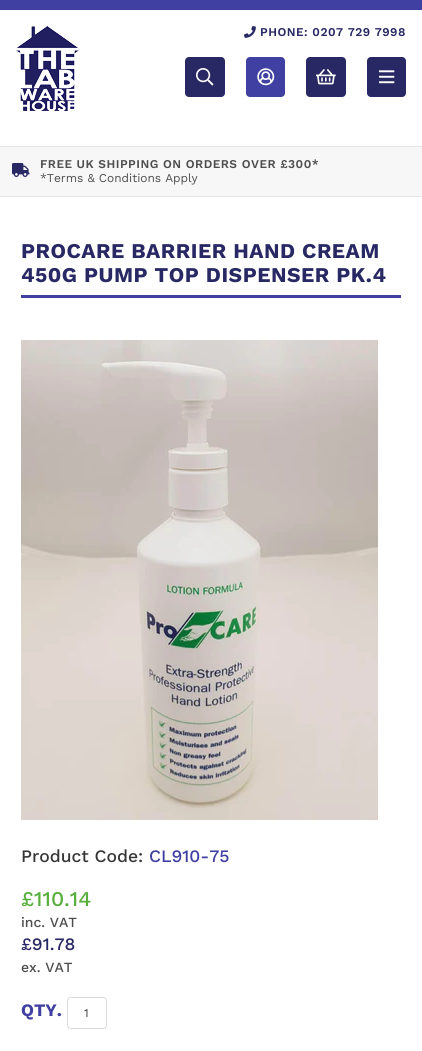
#include <cairo.h>
#include <math.h>
#include <stddef.h>

typedef struct { double x, y, w, h; unsigned color; } box_t;

static void ink(cairo_t *ctx, unsigned color) {
    cairo_set_source_rgb(ctx, (color >> 16) / 255.0, (color >> 8 & 255) / 255.0, (color & 255) / 255.0);
}

static void write_spaced(cairo_t *ctx, double x, double y, const char *s, double letter, double word) {
    cairo_move_to(ctx, x, y);
    while (*s) {
        char ch[5] = {0};
        int n = 0;
        do ch[n++] = *s++; while ((*s & 0xC0) == 0x80);
        cairo_show_text(ctx, ch);
        cairo_rel_move_to(ctx, letter + word * (*ch == ' '), 0);
    }
}

static void round_path(cairo_t *ctx, double x, double y, double w, double h, double r) {
    cairo_new_sub_path(ctx);
    cairo_arc(ctx, x + w - r, y + h - r, r, 0, M_PI / 2);
    cairo_arc(ctx, x + r, y + h - r, r, M_PI / 2, M_PI);
    cairo_arc(ctx, x + r, y + r, r, M_PI, 1.5 * M_PI);
    cairo_arc(ctx, x + w - r, y + r, r, 1.5 * M_PI, 2 * M_PI);
    cairo_close_path(ctx);
}

static void paste(cairo_t *ctx, const char *path, double x, double y, double w, double h) {
    cairo_surface_t *image = cairo_image_surface_create_from_png(path);
    cairo_save(ctx);
    cairo_set_source_surface(ctx, image, x, y);
    cairo_rectangle(ctx, x, y, w, h);
    cairo_fill(ctx);
    cairo_restore(ctx);
    cairo_surface_destroy(image);
}

int main(void) {
    cairo_surface_t *surface = cairo_image_surface_create(CAIRO_FORMAT_RGB24, 422, 1051);
    cairo_t *ctx = cairo_create(surface);
    cairo_font_options_t *options = cairo_font_options_create();
    cairo_font_options_set_hint_metrics(options, CAIRO_HINT_METRICS_OFF);
    cairo_font_options_set_hint_style(options, CAIRO_HINT_STYLE_NONE);
    cairo_set_font_options(ctx, options);
    cairo_set_miter_limit(ctx, 4);
    ink(ctx, 0xFFFFFF);
    cairo_paint(ctx);
    ink(ctx, 0x4040A2);
    cairo_rectangle(ctx, 0, 0, 422, 10);
    cairo_fill(ctx);
    paste(ctx, "media/1.png", 16, 26, 63, 85);
    paste(ctx, "media/2.png", 244, 26, 12, 12);
    cairo_select_font_face(ctx, "Work Sans SemiBold", CAIRO_FONT_SLANT_NORMAL, CAIRO_FONT_WEIGHT_NORMAL);
    cairo_set_font_size(ctx, 11.9);
    ink(ctx, 0x282864);
    write_spaced(ctx, 260, 36, "PHONE: 0207 729 7998", 0.5, 0);
    round_path(ctx, 185, 57, 40, 40, 4);
    cairo_fill(ctx);
    paste(ctx, "media/3.png", 196, 68, 18, 18);
    ink(ctx, 0x4040A2);
    round_path(ctx, 246, 57, 39, 40, 4);
    cairo_fill(ctx);
    paste(ctx, "media/4.png", 257, 68, 18, 18);
    ink(ctx, 0x282864);
    round_path(ctx, 306, 57, 40, 40, 4);
    cairo_fill(ctx);
    paste(ctx, "media/5.png", 316, 69, 20, 16);
    round_path(ctx, 367, 57, 39, 40, 4);
    cairo_fill(ctx);
    paste(ctx, "media/6.png", 379, 70, 16, 14);
    {
        static const box_t items[] = {
            {0, 147, 422, 49, 0xF7F7F7},
            {0, 146, 422, 1, 0xE5E5E5},
            {0, 196, 422, 1, 0xE5E5E5},
        };
        for (size_t i = 0; i < sizeof items / sizeof *items; i++) {
            ink(ctx, items[i].color);
            cairo_rectangle(ctx, items[i].x, items[i].y, items[i].w, items[i].h);
            cairo_fill(ctx);
        }
    }
    paste(ctx, "media/7.png", 12, 163, 18, 14);
    ink(ctx, 0x4D4D4D);
    write_spaced(ctx, 40, 168, "FREE UK SHIPPING ON ORDERS OVER £300*", 0.5, 0);
    cairo_select_font_face(ctx, "Work Sans", CAIRO_FONT_SLANT_NORMAL, CAIRO_FONT_WEIGHT_NORMAL);
    cairo_move_to(ctx, 40, 182);
    cairo_show_text(ctx, "*Terms & Conditions Apply");
    ink(ctx, 0x4040A2);
    cairo_rectangle(ctx, 21, 295, 380, 3);
    cairo_fill(ctx);
    cairo_select_font_face(ctx, "Work Sans", CAIRO_FONT_SLANT_NORMAL, CAIRO_FONT_WEIGHT_BOLD);
    cairo_set_font_size(ctx, 21);
    ink(ctx, 0x282864);
    write_spaced(ctx, 21, 258, "PROCARE BARRIER HAND CREAM", 0.5, 0);
    write_spaced(ctx, 21, 282, "450G PUMP TOP DISPENSER PK.4", 0.5, 0);
    paste(ctx, "media/8.png", 21, 340, 357, 480);
    cairo_select_font_face(ctx, "Work Sans Medium", CAIRO_FONT_SLANT_NORMAL, CAIRO_FONT_WEIGHT_NORMAL);
    cairo_set_font_size(ctx, 17.5);
    ink(ctx, 0x363636);
    cairo_move_to(ctx, 21, 862);
    cairo_show_text(ctx, "Product Code:");
    ink(ctx, 0x4040A2);
    cairo_move_to(ctx, 149, 862);
    cairo_show_text(ctx, "CL910-75");
    cairo_set_font_size(ctx, 21);
    ink(ctx, 0x57AF3C);
    cairo_move_to(ctx, 21, 906);
    cairo_show_text(ctx, "£110.14");
    cairo_set_font_size(ctx, 14);
    ink(ctx, 0x4D4D4D);
    cairo_move_to(ctx, 21, 927);
    cairo_show_text(ctx, "inc. VAT");
    cairo_set_font_size(ctx, 17.5);
    ink(ctx, 0x282864);
    cairo_move_to(ctx, 21, 950);
    cairo_show_text(ctx, "£91.78");
    cairo_set_font_size(ctx, 14);
    ink(ctx, 0x4D4D4D);
    cairo_move_to(ctx, 21, 972);
    cairo_show_text(ctx, "ex. VAT");
    cairo_select_font_face(ctx, "Work Sans", CAIRO_FONT_SLANT_NORMAL, CAIRO_FONT_WEIGHT_BOLD);
    cairo_set_font_size(ctx, 17.5);
    ink(ctx, 0x4040A2);
    cairo_move_to(ctx, 21, 1016);
    cairo_show_text(ctx, "QTY.");
    round_path(ctx, 67.5, 997.5, 39, 31, 3.5);
    ink(ctx, 0xDBDBDB);
    cairo_set_line_width(ctx, 1);
    cairo_stroke(ctx);
    cairo_select_font_face(ctx, "Work Sans", CAIRO_FONT_SLANT_NORMAL, CAIRO_FONT_WEIGHT_NORMAL);
    cairo_set_font_size(ctx, 11.9);
    ink(ctx, 0x363636);
    cairo_move_to(ctx, 84, 1017);
    cairo_show_text(ctx, "1");
    cairo_surface_write_to_png(surface, "image.png");
    cairo_font_options_destroy(options);
    cairo_destroy(ctx);
    cairo_surface_destroy(surface);
    return 0;
}
